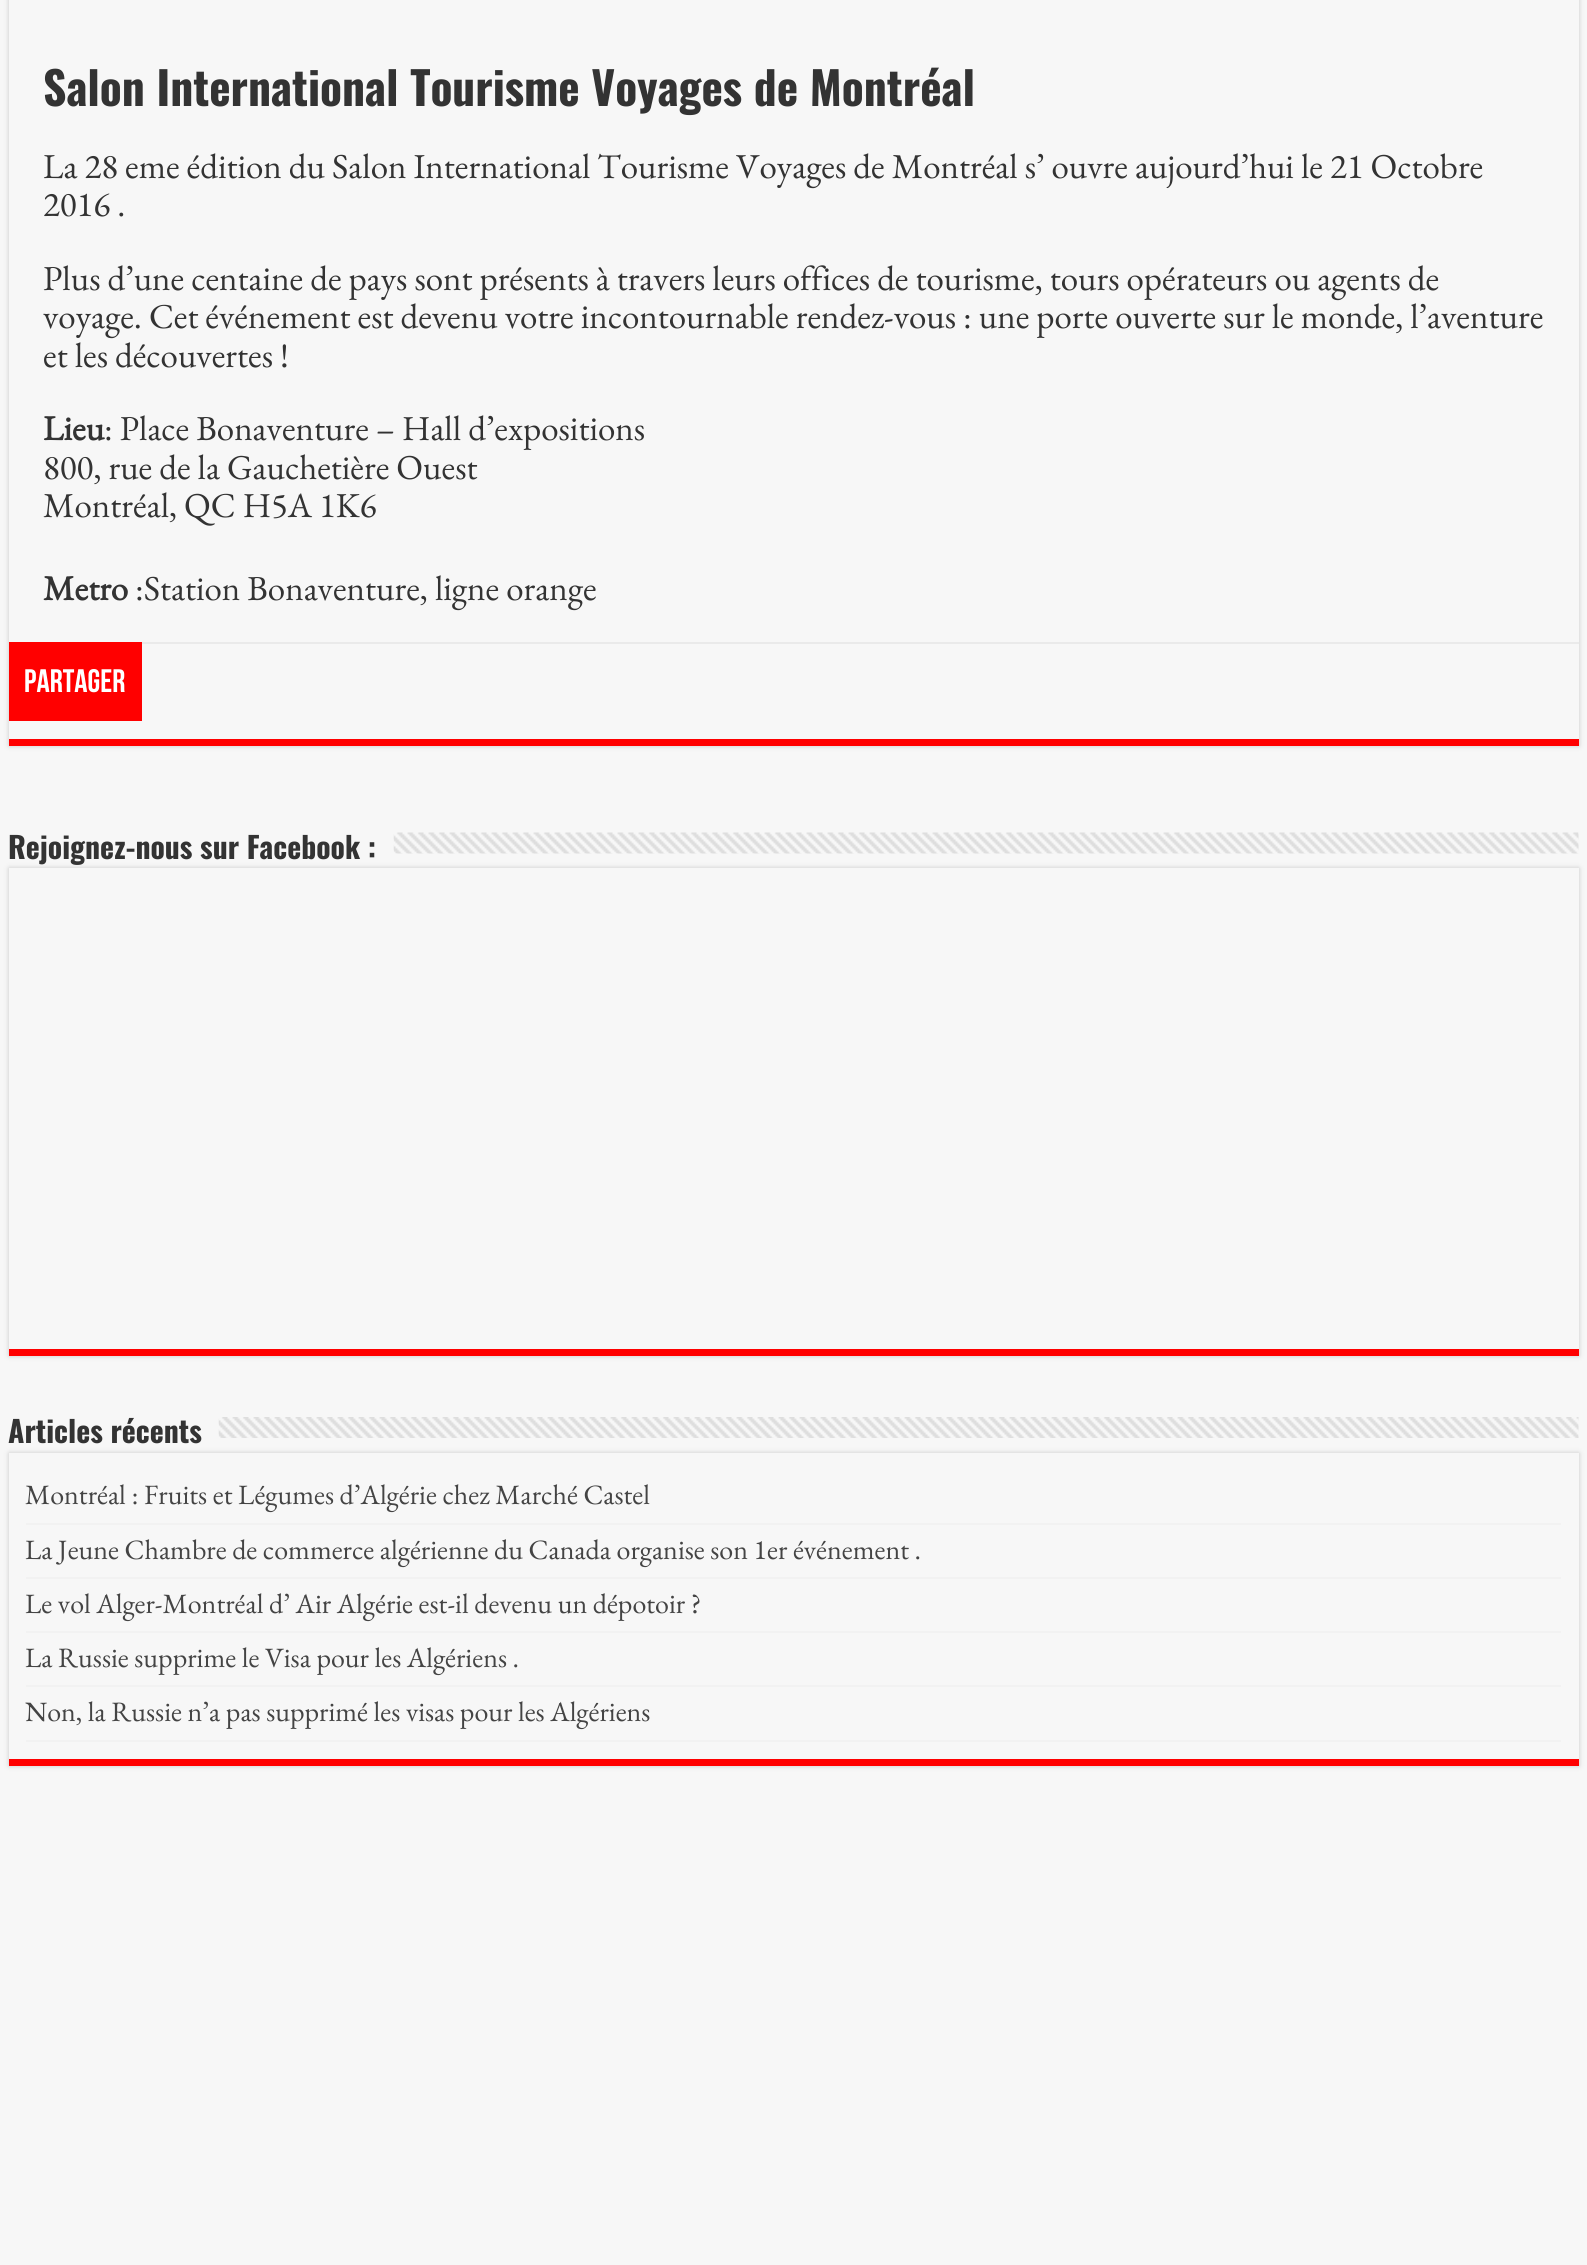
#include <cairo.h>
#include <math.h>
#include <stddef.h>

typedef struct { double x, y; const char *s; } line_t;
typedef struct { double x, y, w, h; unsigned color; } box_t;

static void ink(cairo_t *ctx, unsigned color) {
    cairo_set_source_rgb(ctx, (color >> 16) / 255.0, (color >> 8 & 255) / 255.0, (color & 255) / 255.0);
}

static void round_path(cairo_t *ctx, double x, double y, double w, double h, double r) {
    cairo_new_sub_path(ctx);
    cairo_arc(ctx, x + w - r, y + h - r, r, 0, M_PI / 2);
    cairo_arc(ctx, x + r, y + h - r, r, M_PI / 2, M_PI);
    cairo_arc(ctx, x + r, y + r, r, M_PI, 1.5 * M_PI);
    cairo_arc(ctx, x + w - r, y + r, r, 1.5 * M_PI, 2 * M_PI);
    cairo_close_path(ctx);
}

static void blur_box(cairo_t *ctx, double x, double y, double w, double h, double r, double blur, double alpha) {
    cairo_push_group_with_content(ctx, CAIRO_CONTENT_ALPHA);
    cairo_set_operator(ctx, CAIRO_OPERATOR_SOURCE);
    for (int i = 15; i >= -15 && fmin(w, h) + blur * i / 3 > 0; i -= 2) {
        double e = blur * i / 6;
        cairo_set_source_rgba(ctx, 0, 0, 0, alpha * erfc((i - 1) / 8.5) / 2);
        round_path(ctx, x - e, y - e, w + 2 * e, h + 2 * e, fmax(0, fmin(r + e + blur * .6, fmin(w, h) / 2 + e)));
        cairo_fill(ctx);
    }
    cairo_pattern_t *soft = cairo_pop_group(ctx);
    cairo_mask(ctx, soft);
    cairo_pattern_destroy(soft);
}

static void paste(cairo_t *ctx, const char *path, double x, double y, double w, double h) {
    cairo_surface_t *image = cairo_image_surface_create_from_png(path);
    cairo_save(ctx);
    cairo_set_source_surface(ctx, image, x, y);
    cairo_rectangle(ctx, x, y, w, h);
    cairo_fill(ctx);
    cairo_restore(ctx);
    cairo_surface_destroy(image);
}

int main(void) {
    cairo_surface_t *surface = cairo_image_surface_create(CAIRO_FORMAT_RGB24, 1587, 2265);
    cairo_t *ctx = cairo_create(surface);
    cairo_font_options_t *options = cairo_font_options_create();
    cairo_font_options_set_hint_metrics(options, CAIRO_HINT_METRICS_OFF);
    cairo_font_options_set_hint_style(options, CAIRO_HINT_STYLE_NONE);
    cairo_set_font_options(ctx, options);
    cairo_set_miter_limit(ctx, 4);
    ink(ctx, 0xF7F7F7);
    cairo_paint(ctx);
    ink(ctx, 0xCACACA);
    blur_box(ctx, 9, -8, 1570, 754, 0, 2.5, 1);
    ink(ctx, 0xF7F7F7);
    cairo_rectangle(ctx, 9, 0, 1570, 739);
    cairo_fill(ctx);
    ink(ctx, 0xFF0000);
    cairo_rectangle(ctx, 9, 739, 1570, 7);
    cairo_fill(ctx);
    cairo_select_font_face(ctx, "Oswald", CAIRO_FONT_SLANT_NORMAL, CAIRO_FONT_WEIGHT_BOLD);
    cairo_set_font_size(ctx, 45.5);
    ink(ctx, 0x333333);
    cairo_move_to(ctx, 43, 106);
    cairo_show_text(ctx, "Salon International Tourisme Voyages de Montréal");
    cairo_select_font_face(ctx, "EB Garamond", CAIRO_FONT_SLANT_NORMAL, CAIRO_FONT_WEIGHT_NORMAL);
    cairo_set_font_size(ctx, 35);
    {
        static const line_t items[] = {
            {43, 178, "La 28 eme édition du Salon International Tourisme Voyages de Montréal s’ ouvre aujourd’hui le 21 Octobre"},
            {43, 216, "2016 ."},
            {43, 290, "Plus d’une centaine de pays sont présents à travers leurs offices de tourisme, tours opérateurs ou agents de"},
            {43, 328, "voyage. Cet événement est devenu votre incontournable rendez-vous : une porte ouverte sur le monde, l’aventure"},
            {43, 367, "et les découvertes !"},
        };
        for (size_t i = 0; i < sizeof items / sizeof *items; i++) {
            cairo_move_to(ctx, items[i].x, items[i].y);
            cairo_show_text(ctx, items[i].s);
        }
    }
    cairo_select_font_face(ctx, "EB Garamond", CAIRO_FONT_SLANT_NORMAL, CAIRO_FONT_WEIGHT_BOLD);
    cairo_move_to(ctx, 43, 440);
    cairo_show_text(ctx, "Lieu");
    cairo_select_font_face(ctx, "EB Garamond", CAIRO_FONT_SLANT_NORMAL, CAIRO_FONT_WEIGHT_NORMAL);
    {
        static const line_t items[] = {
            {104, 440, ": Place Bonaventure – Hall d’expositions"},
            {43, 479, "800, rue de la Gauchetière Ouest"},
            {43, 517, "Montréal, QC H5A 1K6"},
        };
        for (size_t i = 0; i < sizeof items / sizeof *items; i++) {
            cairo_move_to(ctx, items[i].x, items[i].y);
            cairo_show_text(ctx, items[i].s);
        }
    }
    cairo_select_font_face(ctx, "EB Garamond", CAIRO_FONT_SLANT_NORMAL, CAIRO_FONT_WEIGHT_BOLD);
    cairo_move_to(ctx, 43, 600);
    cairo_show_text(ctx, "Metro");
    cairo_select_font_face(ctx, "EB Garamond", CAIRO_FONT_SLANT_NORMAL, CAIRO_FONT_WEIGHT_NORMAL);
    cairo_move_to(ctx, 135, 600);
    cairo_show_text(ctx, ":Station Bonaventure, ligne orange");
    ink(ctx, 0xEAEAEA);
    cairo_rectangle(ctx, 142, 642, 1437, 2);
    cairo_fill(ctx);
    ink(ctx, 0xFF0000);
    cairo_rectangle(ctx, 9, 642, 133, 79);
    cairo_fill(ctx);
    cairo_select_font_face(ctx, "Bebas Neue", CAIRO_FONT_SLANT_NORMAL, CAIRO_FONT_WEIGHT_BOLD);
    cairo_set_font_size(ctx, 32.5);
    ink(ctx, 0xFFFFFF);
    cairo_move_to(ctx, 24, 692);
    cairo_show_text(ctx, "Partager");
    ink(ctx, 0xCACACA);
    blur_box(ctx, 9, 868, 1570, 488, 0, 2.5, 1);
    cairo_select_font_face(ctx, "Oswald", CAIRO_FONT_SLANT_NORMAL, CAIRO_FONT_WEIGHT_BOLD);
    cairo_set_font_size(ctx, 29.75);
    ink(ctx, 0x333333);
    cairo_move_to(ctx, 8, 859);
    cairo_show_text(ctx, "Rejoignez-nous sur Facebook :");
    paste(ctx, "media/1.png", 393, 832, 1186, 22);
    ink(ctx, 0xF7F7F7);
    cairo_rectangle(ctx, 9, 868, 1570, 481);
    cairo_fill(ctx);
    ink(ctx, 0xFF0000);
    cairo_rectangle(ctx, 9, 1349, 1570, 7);
    cairo_fill(ctx);
    ink(ctx, 0x333333);
    cairo_move_to(ctx, 8, 1443);
    cairo_show_text(ctx, "Articles récents");
    paste(ctx, "media/2.png", 218, 1417, 1361, 21);
    ink(ctx, 0xCACACA);
    blur_box(ctx, 9, 1453, 1570, 313, 0, 2.5, 1);
    {
        static const box_t items[] = {
            {9, 1453, 1570, 306, 0xF7F7F7},
            {9, 1759, 1570, 7, 0xFF0000},
            {26, 1523, 1535, 2, 0xF2F2F2},
        };
        for (size_t i = 0; i < sizeof items / sizeof *items; i++) {
            ink(ctx, items[i].color);
            cairo_rectangle(ctx, items[i].x, items[i].y, items[i].w, items[i].h);
            cairo_fill(ctx);
        }
    }
    cairo_select_font_face(ctx, "EB Garamond", CAIRO_FONT_SLANT_NORMAL, CAIRO_FONT_WEIGHT_NORMAL);
    cairo_set_font_size(ctx, 28);
    ink(ctx, 0x444444);
    cairo_move_to(ctx, 25, 1504);
    cairo_show_text(ctx, "Montréal : Fruits et Légumes d’Algérie chez Marché Castel");
    ink(ctx, 0xF2F2F2);
    cairo_rectangle(ctx, 26, 1577, 1535, 2);
    cairo_fill(ctx);
    ink(ctx, 0x444444);
    cairo_move_to(ctx, 25, 1559);
    cairo_show_text(ctx, "La Jeune Chambre de commerce algérienne du Canada organise son 1er événement .");
    ink(ctx, 0xF2F2F2);
    cairo_rectangle(ctx, 26, 1631, 1535, 2);
    cairo_fill(ctx);
    ink(ctx, 0x444444);
    cairo_move_to(ctx, 25, 1613);
    cairo_show_text(ctx, "Le vol Alger-Montréal d’ Air Algérie est-il devenu un dépotoir ?");
    ink(ctx, 0xF2F2F2);
    cairo_rectangle(ctx, 26, 1685, 1535, 2);
    cairo_fill(ctx);
    ink(ctx, 0x444444);
    cairo_move_to(ctx, 25, 1667);
    cairo_show_text(ctx, "La Russie supprime le Visa pour les Algériens .");
    ink(ctx, 0xF2F2F2);
    cairo_rectangle(ctx, 26, 1740, 1535, 2);
    cairo_fill(ctx);
    ink(ctx, 0x444444);
    cairo_move_to(ctx, 25, 1721);
    cairo_show_text(ctx, "Non, la Russie n’a pas supprimé les visas pour les Algériens");
    cairo_surface_write_to_png(surface, "image.png");
    cairo_font_options_destroy(options);
    cairo_destroy(ctx);
    cairo_surface_destroy(surface);
    return 0;
}
